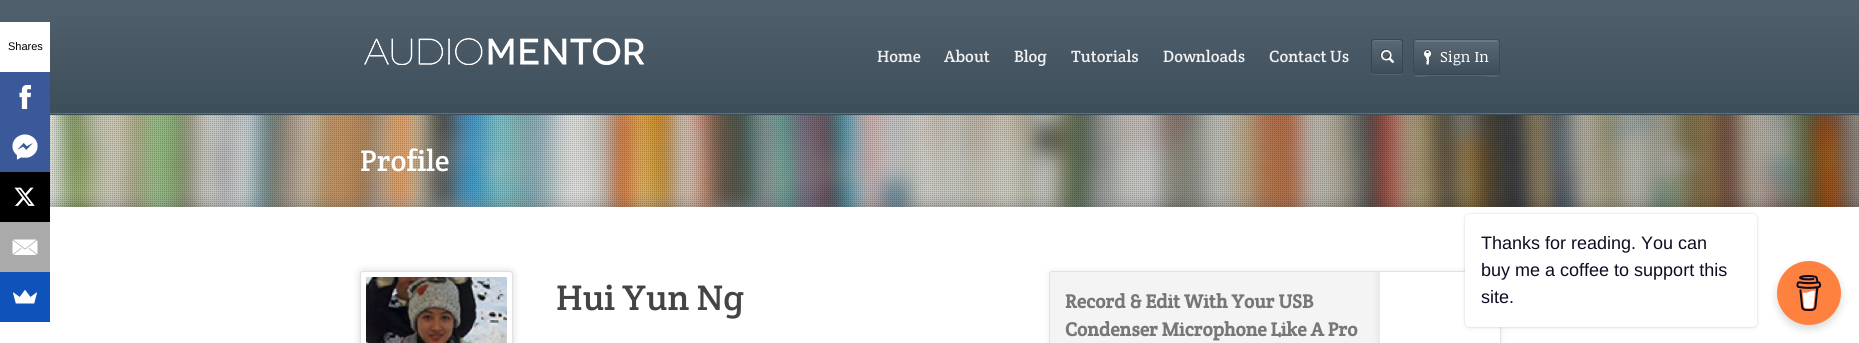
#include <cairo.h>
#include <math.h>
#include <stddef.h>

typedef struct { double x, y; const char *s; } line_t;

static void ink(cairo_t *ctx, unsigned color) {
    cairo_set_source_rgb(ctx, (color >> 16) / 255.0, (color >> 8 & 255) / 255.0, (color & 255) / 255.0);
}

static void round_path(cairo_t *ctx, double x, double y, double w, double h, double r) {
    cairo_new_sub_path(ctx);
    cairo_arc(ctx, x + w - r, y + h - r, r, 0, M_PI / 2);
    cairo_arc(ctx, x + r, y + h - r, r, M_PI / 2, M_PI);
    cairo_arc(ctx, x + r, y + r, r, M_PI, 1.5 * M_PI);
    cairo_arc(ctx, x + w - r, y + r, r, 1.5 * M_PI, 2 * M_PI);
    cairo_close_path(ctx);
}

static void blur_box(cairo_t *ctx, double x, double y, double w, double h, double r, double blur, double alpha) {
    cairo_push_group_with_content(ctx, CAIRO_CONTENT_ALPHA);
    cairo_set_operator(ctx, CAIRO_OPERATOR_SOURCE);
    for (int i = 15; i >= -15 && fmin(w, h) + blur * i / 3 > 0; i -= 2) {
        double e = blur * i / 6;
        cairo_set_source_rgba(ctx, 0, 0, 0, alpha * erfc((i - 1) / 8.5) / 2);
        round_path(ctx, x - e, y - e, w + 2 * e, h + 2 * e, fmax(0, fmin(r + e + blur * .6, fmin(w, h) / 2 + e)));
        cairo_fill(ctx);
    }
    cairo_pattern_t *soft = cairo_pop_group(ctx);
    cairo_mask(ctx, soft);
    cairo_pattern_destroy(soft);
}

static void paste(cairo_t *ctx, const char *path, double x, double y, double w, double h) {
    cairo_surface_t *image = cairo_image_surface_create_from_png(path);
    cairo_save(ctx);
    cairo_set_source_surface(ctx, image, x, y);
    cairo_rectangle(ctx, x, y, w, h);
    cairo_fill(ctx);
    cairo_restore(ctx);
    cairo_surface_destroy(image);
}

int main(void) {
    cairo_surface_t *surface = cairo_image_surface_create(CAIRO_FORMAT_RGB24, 1859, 343);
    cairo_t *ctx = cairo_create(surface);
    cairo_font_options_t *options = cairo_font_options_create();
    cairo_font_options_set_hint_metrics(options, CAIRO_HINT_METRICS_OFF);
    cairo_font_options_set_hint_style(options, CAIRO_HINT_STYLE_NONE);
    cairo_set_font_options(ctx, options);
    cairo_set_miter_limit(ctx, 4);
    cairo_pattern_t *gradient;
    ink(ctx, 0xFFFFFF);
    cairo_paint(ctx);
    gradient = cairo_pattern_create_linear(930, 1, 930, 113);
    cairo_pattern_add_color_stop_rgba(gradient, 0, 0.314, 0.376, 0.424, 1);
    cairo_pattern_add_color_stop_rgba(gradient, 1, 0.239, 0.306, 0.357, 1);
    cairo_set_source(ctx, gradient);
    cairo_pattern_destroy(gradient);
    cairo_rectangle(ctx, 0, 1, 1859, 112);
    cairo_fill(ctx);
    ink(ctx, 0xFFFFFF);
    cairo_rectangle(ctx, 0, 22, 50, 50);
    cairo_fill(ctx);
    cairo_select_font_face(ctx, "Liberation Sans", CAIRO_FONT_SLANT_NORMAL, CAIRO_FONT_WEIGHT_NORMAL);
    cairo_set_font_size(ctx, 11);
    ink(ctx, 0x000000);
    cairo_move_to(ctx, 8, 50);
    cairo_show_text(ctx, "Shares");
    ink(ctx, 0x3B5998);
    cairo_rectangle(ctx, 0, 72, 50, 100);
    cairo_fill(ctx);
    paste(ctx, "media/1.png", 19, 85, 12, 24);
    paste(ctx, "media/2.png", 12, 134, 26, 26);
    paste(ctx, "media/10.png", 50, 115, 1809, 92);
    paste(ctx, "media/11.png", 50, 115, 1809, 91);
    cairo_save(ctx);
    cairo_rectangle(ctx, 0, 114, 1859, 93);
    cairo_clip(ctx);
    ink(ctx, 0x000000);
    blur_box(ctx, 0, 207, 1859, 5, 0, 7.5, 0.3);
    cairo_restore(ctx);
    ink(ctx, 0x000000);
    cairo_rectangle(ctx, 0, 172, 50, 50);
    cairo_fill(ctx);
    paste(ctx, "media/3.png", 14, 187, 21, 19);
    ink(ctx, 0xAAAAAA);
    cairo_rectangle(ctx, 0, 222, 50, 50);
    cairo_fill(ctx);
    paste(ctx, "media/4.png", 12, 239, 26, 16);
    ink(ctx, 0x0F52BA);
    cairo_rectangle(ctx, 0, 272, 50, 50);
    cairo_fill(ctx);
    paste(ctx, "media/5.png", 13, 290, 24, 14);
    ink(ctx, 0x50606B);
    cairo_rectangle(ctx, 0, 0, 1859, 1);
    cairo_fill(ctx);
    ink(ctx, 0x62707A);
    cairo_rectangle(ctx, 50, 113, 1809, 1);
    cairo_fill(ctx);
    paste(ctx, "media/6.png", 364, 38, 280, 27);
    cairo_select_font_face(ctx, "Crete Round", CAIRO_FONT_SLANT_NORMAL, CAIRO_FONT_WEIGHT_NORMAL);
    cairo_set_font_size(ctx, 16.5);
    ink(ctx, 0xF0F0F0);
    {
        static const line_t items[] = {
            {877, 62, "Home"},
            {944, 62, "About"},
            {1014, 62, "Blog"},
            {1071, 62, "Tutorials"},
            {1163, 62, "Downloads"},
            {1269, 62, "Contact Us"},
        };
        for (size_t i = 0; i < sizeof items / sizeof *items; i++) {
            cairo_move_to(ctx, items[i].x, items[i].y);
            cairo_show_text(ctx, items[i].s);
        }
    }
    ink(ctx, 0x576571);
    cairo_new_path(ctx);
    cairo_move_to(ctx, 1371, 71);
    cairo_curve_to(ctx, 1371, 76, 1374.5, 75, 1378.5, 75);
    cairo_line_to(ctx, 1395.5, 75);
    cairo_curve_to(ctx, 1399.5, 75, 1403, 76, 1403, 71);
    cairo_curve_to(ctx, 1403, 72.5, 1401.5, 74, 1400, 74);
    cairo_line_to(ctx, 1374, 74);
    cairo_curve_to(ctx, 1372.5, 74, 1371, 72.5, 1371, 71);
    cairo_close_path(ctx);
    cairo_fill(ctx);
    ink(ctx, 0x3D4E5B);
    round_path(ctx, 1371, 39, 32, 35, 3);
    cairo_fill(ctx);
    paste(ctx, "media/7.png", 1380, 49, 14, 14);
    round_path(ctx, 1371.5, 39.5, 31, 34, 2.5);
    cairo_set_source_rgba(ctx, 0, 0, 0, 0.1);
    cairo_set_line_width(ctx, 1);
    cairo_stroke(ctx);
    gradient = cairo_pattern_create_linear(1387, 40, 1387, 73);
    cairo_pattern_add_color_stop_rgba(gradient, 0, 1, 1, 1, 0.15);
    cairo_pattern_add_color_stop_rgba(gradient, 1, 1, 1, 1, 0);
    cairo_set_source(ctx, gradient);
    cairo_pattern_destroy(gradient);
    round_path(ctx, 1372, 40, 30, 33, 3);
    cairo_fill(ctx);
    cairo_set_source_rgba(ctx, 1, 1, 1, 0.1);
    cairo_set_fill_rule(ctx, CAIRO_FILL_RULE_EVEN_ODD);
    cairo_new_path(ctx);
    cairo_move_to(ctx, 1375, 41);
    cairo_line_to(ctx, 1395, 41);
    cairo_curve_to(ctx, 1402, 41, 1402, 41, 1402, 48);
    cairo_curve_to(ctx, 1402, 41, 1403, 40, 1395, 40);
    cairo_line_to(ctx, 1379, 40);
    cairo_curve_to(ctx, 1375.5, 40, 1372, 39, 1372, 43.5);
    cairo_curve_to(ctx, 1372.5, 42, 1373.5, 41, 1375, 41);
    cairo_close_path(ctx);
    cairo_move_to(ctx, 1372, 71);
    cairo_line_to(ctx, 1372, 68);
    cairo_close_path(ctx);
    cairo_fill(ctx);
    ink(ctx, 0x566571);
    cairo_set_fill_rule(ctx, CAIRO_FILL_RULE_WINDING);
    cairo_new_path(ctx);
    cairo_move_to(ctx, 1413, 72);
    cairo_curve_to(ctx, 1413, 80, 1426, 76, 1430, 76);
    cairo_line_to(ctx, 1484, 76);
    cairo_curve_to(ctx, 1487, 76, 1500, 80, 1500, 72);
    cairo_curve_to(ctx, 1500, 74, 1499, 75, 1497, 75);
    cairo_line_to(ctx, 1416, 75);
    cairo_curve_to(ctx, 1414, 75, 1413, 74, 1413, 72);
    cairo_close_path(ctx);
    cairo_fill(ctx);
    round_path(ctx, 1413.5, 39.5, 86, 35, 2.5);
    cairo_set_source_rgba(ctx, 0, 0, 0, 0.15);
    cairo_stroke(ctx);
    ink(ctx, 0x3D4E5B);
    round_path(ctx, 1414, 40, 85, 34, 3);
    cairo_fill(ctx);
    gradient = cairo_pattern_create_linear(1457, 40, 1457, 74);
    cairo_pattern_add_color_stop_rgba(gradient, 0, 1, 1, 1, 0.15);
    cairo_pattern_add_color_stop_rgba(gradient, 1, 1, 1, 1, 0);
    cairo_set_source(ctx, gradient);
    cairo_pattern_destroy(gradient);
    round_path(ctx, 1414, 40, 85, 34, 3);
    cairo_fill(ctx);
    paste(ctx, "media/8.png", 1414, 40, 85, 2);
    paste(ctx, "media/9.png", 1424, 49, 7, 16);
    cairo_select_font_face(ctx, "Noticia Text", CAIRO_FONT_SLANT_NORMAL, CAIRO_FONT_WEIGHT_NORMAL);
    cairo_set_font_size(ctx, 15);
    ink(ctx, 0xFFFFFF);
    cairo_move_to(ctx, 1440, 62);
    cairo_show_text(ctx, "Sign In");
    ink(ctx, 0x3D4E5B);
    cairo_rectangle(ctx, 50, 114, 1809, 1);
    cairo_fill(ctx);
    cairo_select_font_face(ctx, "Crete Round", CAIRO_FONT_SLANT_NORMAL, CAIRO_FONT_WEIGHT_NORMAL);
    cairo_set_font_size(ctx, 30);
    ink(ctx, 0xFFFFFF);
    cairo_move_to(ctx, 360, 171);
    cairo_show_text(ctx, "Profile");
    ink(ctx, 0x000000);
    blur_box(ctx, 360, 271, 153, 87, 3, 4, 0.15);
    ink(ctx, 0xFFFFFF);
    round_path(ctx, 360.5, 271.5, 152, 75, 2.5);
    cairo_fill_preserve(ctx);
    ink(ctx, 0xE1E1E1);
    cairo_stroke(ctx);
    paste(ctx, "media/12.png", 366, 277, 141, 66);
    cairo_set_font_size(ctx, 36);
    ink(ctx, 0x444444);
    cairo_move_to(ctx, 556, 310);
    cairo_show_text(ctx, "Hui Yun Ng");
    ink(ctx, 0x000000);
    blur_box(ctx, 1049, 271, 452, 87, 3, 4, 0.07);
    ink(ctx, 0xF4F4F4);
    round_path(ctx, 1049.5, 271.5, 451, 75, 2.5);
    cairo_fill_preserve(ctx);
    ink(ctx, 0xE1E1E1);
    cairo_stroke(ctx);
    cairo_select_font_face(ctx, "Crete Round", CAIRO_FONT_SLANT_NORMAL, CAIRO_FONT_WEIGHT_BOLD);
    cairo_set_font_size(ctx, 19.25);
    ink(ctx, 0x777777);
    cairo_move_to(ctx, 1065, 308);
    cairo_show_text(ctx, "Record & Edit With Your USB");
    cairo_move_to(ctx, 1065, 336);
    cairo_show_text(ctx, "Condenser Microphone Like A Pro");
    cairo_save(ctx);
    round_path(ctx, 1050, 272, 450, 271, 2);
    cairo_clip(ctx);
    ink(ctx, 0x000000);
    blur_box(ctx, 1380, 272, 120, 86, 0, 5, 0.1);
    cairo_restore(ctx);
    ink(ctx, 0xFFFFFF);
    cairo_rectangle(ctx, 1380, 272, 120, 71);
    cairo_fill(ctx);
    ink(ctx, 0x000000);
    blur_box(ctx, 1465, 214, 292, 113, 4, 1, 0.15);
    blur_box(ctx, 1465, 216, 292, 113, 4, 2.5, 0.05);
    ink(ctx, 0xFFFFFF);
    round_path(ctx, 1465, 214, 292, 113, 4);
    cairo_fill(ctx);
    cairo_select_font_face(ctx, "Liberation Sans", CAIRO_FONT_SLANT_NORMAL, CAIRO_FONT_WEIGHT_NORMAL);
    cairo_set_font_size(ctx, 18);
    ink(ctx, 0x0D0C22);
    {
        static const line_t items[] = {
            {1481, 249, "Thanks for reading. You can"},
            {1481, 276, "buy me a coffee to support this"},
            {1481, 303, "site."},
        };
        for (size_t i = 0; i < sizeof items / sizeof *items; i++) {
            cairo_move_to(ctx, items[i].x, items[i].y);
            cairo_show_text(ctx, items[i].s);
        }
    }
    ink(ctx, 0x000000);
    blur_box(ctx, 1777, 265, 64, 64, 32, 4, 0.15);
    ink(ctx, 0xFF813F);
    cairo_arc(ctx, 1809, 293, 32, 0, 2 * M_PI);
    cairo_fill(ctx);
    paste(ctx, "media/13.png", 1796, 275, 26, 36);
    cairo_surface_write_to_png(surface, "image.png");
    cairo_font_options_destroy(options);
    cairo_destroy(ctx);
    cairo_surface_destroy(surface);
    return 0;
}
